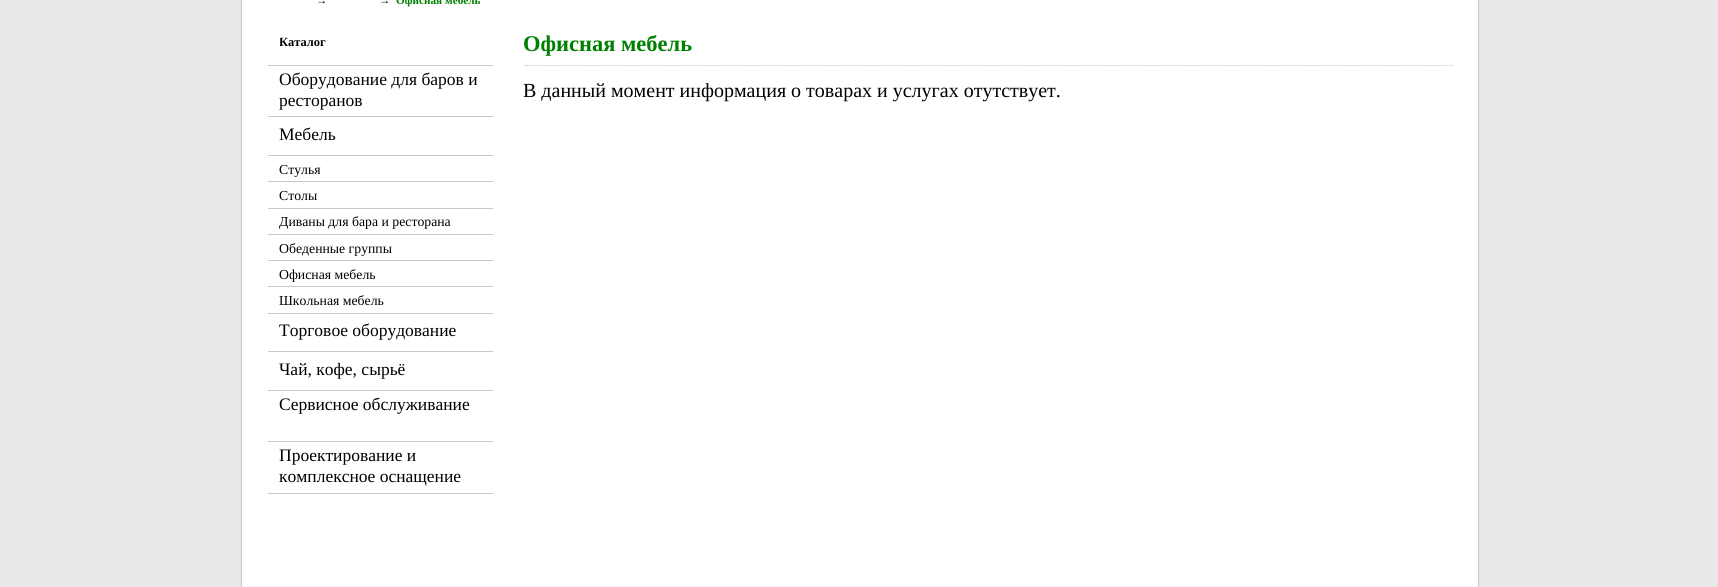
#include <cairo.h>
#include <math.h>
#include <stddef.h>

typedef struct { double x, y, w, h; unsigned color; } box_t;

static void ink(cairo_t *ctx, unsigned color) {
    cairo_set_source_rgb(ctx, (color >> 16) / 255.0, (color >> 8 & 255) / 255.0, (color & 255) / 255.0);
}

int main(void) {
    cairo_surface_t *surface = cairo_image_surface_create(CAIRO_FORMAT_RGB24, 1718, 587);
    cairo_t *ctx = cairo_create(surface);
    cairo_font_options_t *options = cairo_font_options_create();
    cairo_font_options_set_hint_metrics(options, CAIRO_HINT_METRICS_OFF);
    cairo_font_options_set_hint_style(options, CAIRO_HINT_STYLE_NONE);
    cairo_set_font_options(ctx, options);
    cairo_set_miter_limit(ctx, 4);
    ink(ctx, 0xE8E8E8);
    cairo_paint(ctx);
    {
        static const box_t items[] = {
            {242, 0, 1236, 587, 0xFFFFFF},
            {1478, 0, 1, 587, 0xC9C9C9},
            {241, 0, 1, 587, 0xC9C9C9},
        };
        for (size_t i = 0; i < sizeof items / sizeof *items; i++) {
            ink(ctx, items[i].color);
            cairo_rectangle(ctx, items[i].x, items[i].y, items[i].w, items[i].h);
            cairo_fill(ctx);
        }
    }
    cairo_select_font_face(ctx, "Liberation Serif", CAIRO_FONT_SLANT_NORMAL, CAIRO_FONT_WEIGHT_NORMAL);
    cairo_set_font_size(ctx, 11.25);
    ink(ctx, 0x000000);
    cairo_move_to(ctx, 316, 4);
    cairo_show_text(ctx, "→");
    cairo_move_to(ctx, 379, 4);
    cairo_show_text(ctx, "→");
    cairo_select_font_face(ctx, "Liberation Serif", CAIRO_FONT_SLANT_NORMAL, CAIRO_FONT_WEIGHT_BOLD);
    ink(ctx, 0x008000);
    cairo_move_to(ctx, 396, 4);
    cairo_show_text(ctx, "Офисная мебель");
    cairo_save(ctx);
    cairo_rectangle(ctx, 280, 35, 213, 15);
    cairo_clip(ctx);
    cairo_set_font_size(ctx, 12.5);
    ink(ctx, 0x000000);
    cairo_move_to(ctx, 279, 46);
    cairo_show_text(ctx, "Каталог");
    cairo_restore(ctx);
    ink(ctx, 0xC9C9C9);
    cairo_rectangle(ctx, 268, 65, 225, 1);
    cairo_fill(ctx);
    cairo_select_font_face(ctx, "Liberation Serif", CAIRO_FONT_SLANT_NORMAL, CAIRO_FONT_WEIGHT_NORMAL);
    cairo_set_font_size(ctx, 17.5);
    ink(ctx, 0x000000);
    cairo_move_to(ctx, 279, 85);
    cairo_show_text(ctx, "Оборудование для баров и");
    cairo_move_to(ctx, 279, 106);
    cairo_show_text(ctx, "ресторанов");
    ink(ctx, 0xC9C9C9);
    cairo_rectangle(ctx, 268, 116, 225, 1);
    cairo_fill(ctx);
    ink(ctx, 0x000000);
    cairo_move_to(ctx, 279, 140);
    cairo_show_text(ctx, "Мебель");
    ink(ctx, 0xC9C9C9);
    cairo_rectangle(ctx, 268, 155, 225, 1);
    cairo_fill(ctx);
    cairo_set_font_size(ctx, 13.75);
    ink(ctx, 0x000000);
    cairo_move_to(ctx, 279, 174);
    cairo_show_text(ctx, "Стулья");
    ink(ctx, 0xC9C9C9);
    cairo_rectangle(ctx, 268, 181, 225, 1);
    cairo_fill(ctx);
    ink(ctx, 0x000000);
    cairo_move_to(ctx, 279, 200);
    cairo_show_text(ctx, "Столы");
    ink(ctx, 0xC9C9C9);
    cairo_rectangle(ctx, 268, 208, 225, 1);
    cairo_fill(ctx);
    ink(ctx, 0x000000);
    cairo_move_to(ctx, 279, 226);
    cairo_show_text(ctx, "Диваны для бара и ресторана");
    ink(ctx, 0xC9C9C9);
    cairo_rectangle(ctx, 268, 234, 225, 1);
    cairo_fill(ctx);
    ink(ctx, 0x000000);
    cairo_move_to(ctx, 279, 253);
    cairo_show_text(ctx, "Обеденные группы");
    ink(ctx, 0xC9C9C9);
    cairo_rectangle(ctx, 268, 260, 225, 1);
    cairo_fill(ctx);
    ink(ctx, 0x000000);
    cairo_move_to(ctx, 279, 279);
    cairo_show_text(ctx, "Офисная мебель");
    ink(ctx, 0xC9C9C9);
    cairo_rectangle(ctx, 268, 286, 225, 1);
    cairo_fill(ctx);
    ink(ctx, 0x000000);
    cairo_move_to(ctx, 279, 305);
    cairo_show_text(ctx, "Школьная мебель");
    ink(ctx, 0xC9C9C9);
    cairo_rectangle(ctx, 268, 313, 225, 1);
    cairo_fill(ctx);
    cairo_set_font_size(ctx, 17.5);
    ink(ctx, 0x000000);
    cairo_move_to(ctx, 279, 336);
    cairo_show_text(ctx, "Торговое оборудование");
    ink(ctx, 0xC9C9C9);
    cairo_rectangle(ctx, 268, 351, 225, 1);
    cairo_fill(ctx);
    ink(ctx, 0x000000);
    cairo_move_to(ctx, 279, 375);
    cairo_show_text(ctx, "Чай, кофе, сырьё");
    ink(ctx, 0xC9C9C9);
    cairo_rectangle(ctx, 268, 390, 225, 1);
    cairo_fill(ctx);
    ink(ctx, 0x000000);
    cairo_move_to(ctx, 279, 410);
    cairo_show_text(ctx, "Сервисное обслуживание");
    ink(ctx, 0xC9C9C9);
    cairo_rectangle(ctx, 268, 441, 225, 1);
    cairo_fill(ctx);
    ink(ctx, 0x000000);
    cairo_move_to(ctx, 279, 461);
    cairo_show_text(ctx, "Проектирование и");
    cairo_move_to(ctx, 279, 482);
    cairo_show_text(ctx, "комплексное оснащение");
    ink(ctx, 0xC9C9C9);
    cairo_rectangle(ctx, 268, 493, 225, 1);
    cairo_fill(ctx);
    cairo_select_font_face(ctx, "Liberation Serif", CAIRO_FONT_SLANT_NORMAL, CAIRO_FONT_WEIGHT_BOLD);
    cairo_set_font_size(ctx, 22.5);
    ink(ctx, 0x008000);
    cairo_move_to(ctx, 523, 51);
    cairo_show_text(ctx, "Офисная мебель");
    cairo_new_path(ctx);
    cairo_move_to(ctx, 524, 65.5);
    cairo_line_to(ctx, 1452.5, 65.5);
    ink(ctx, 0xC9C9C9);
    cairo_set_line_width(ctx, 1.2);
    cairo_set_dash(ctx, (double[]){1.25, 1.25}, 2, 0);
    cairo_stroke(ctx);
    cairo_select_font_face(ctx, "Liberation Serif", CAIRO_FONT_SLANT_NORMAL, CAIRO_FONT_WEIGHT_NORMAL);
    cairo_set_font_size(ctx, 20);
    ink(ctx, 0x000000);
    cairo_move_to(ctx, 523, 97);
    cairo_show_text(ctx, "В данный момент информация о товарах и услугах отутствует.");
    cairo_surface_write_to_png(surface, "image.png");
    cairo_font_options_destroy(options);
    cairo_destroy(ctx);
    cairo_surface_destroy(surface);
    return 0;
}
